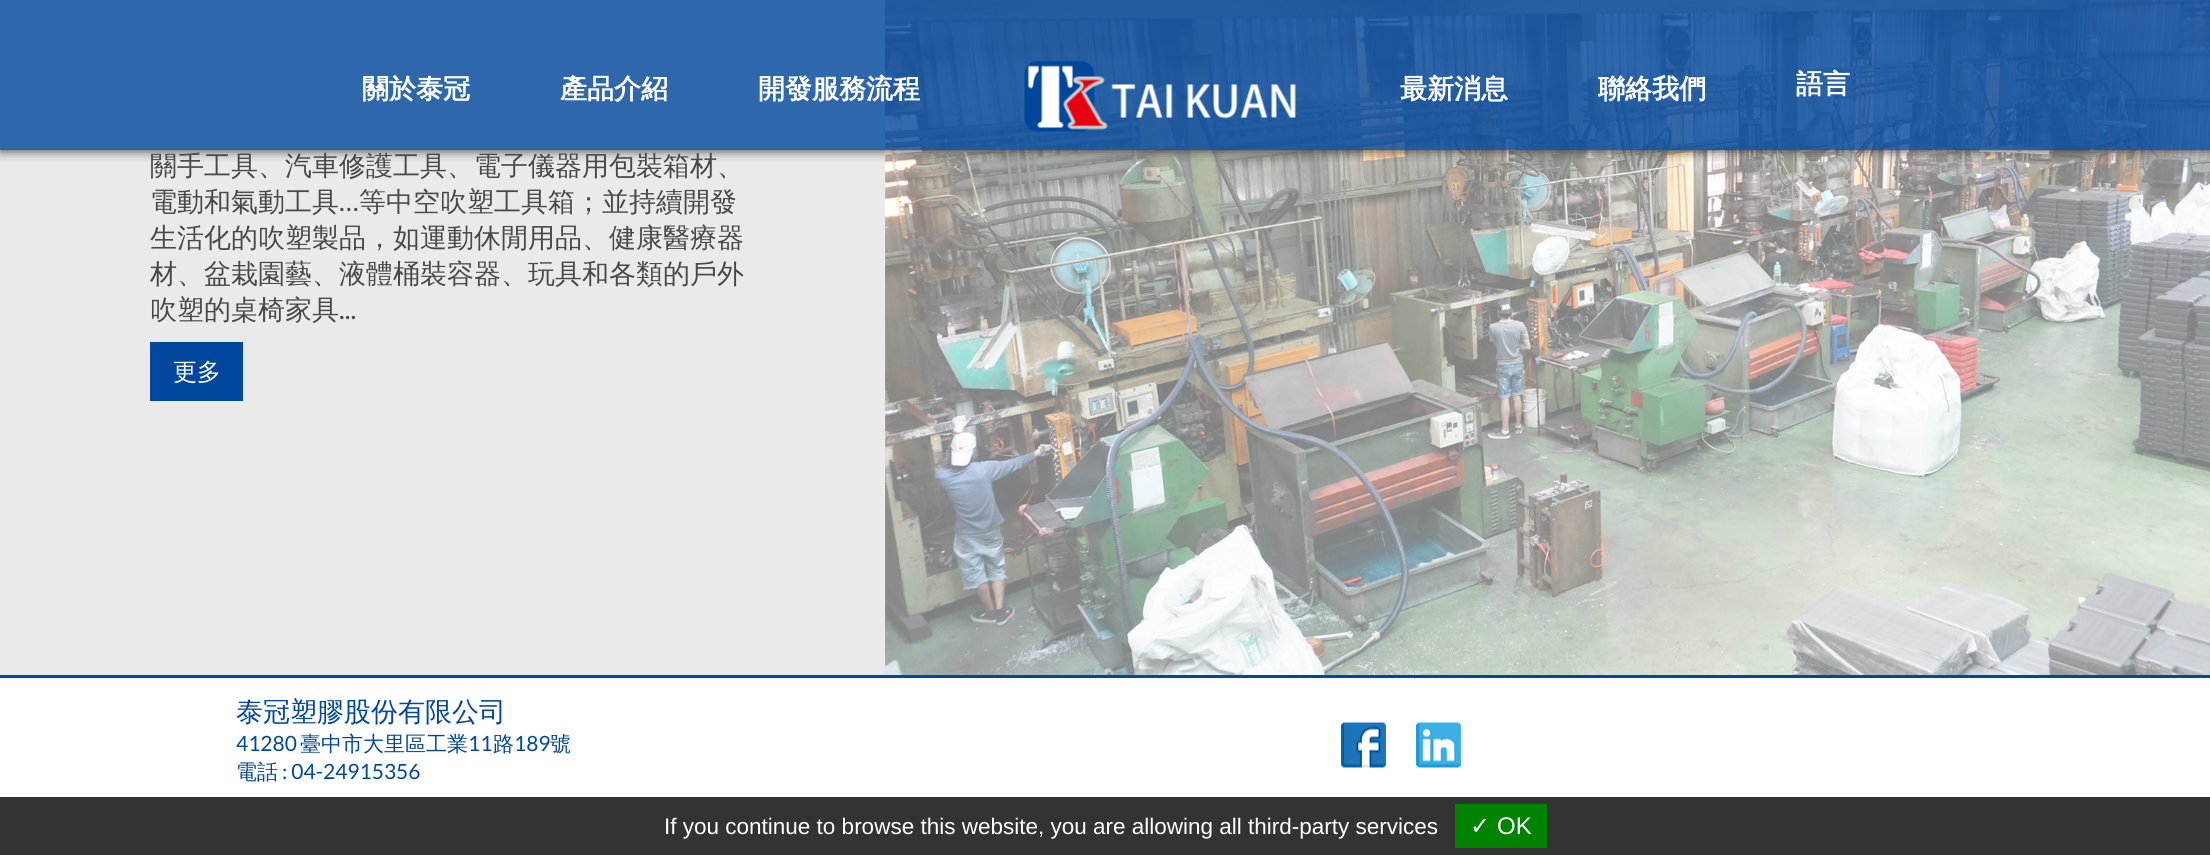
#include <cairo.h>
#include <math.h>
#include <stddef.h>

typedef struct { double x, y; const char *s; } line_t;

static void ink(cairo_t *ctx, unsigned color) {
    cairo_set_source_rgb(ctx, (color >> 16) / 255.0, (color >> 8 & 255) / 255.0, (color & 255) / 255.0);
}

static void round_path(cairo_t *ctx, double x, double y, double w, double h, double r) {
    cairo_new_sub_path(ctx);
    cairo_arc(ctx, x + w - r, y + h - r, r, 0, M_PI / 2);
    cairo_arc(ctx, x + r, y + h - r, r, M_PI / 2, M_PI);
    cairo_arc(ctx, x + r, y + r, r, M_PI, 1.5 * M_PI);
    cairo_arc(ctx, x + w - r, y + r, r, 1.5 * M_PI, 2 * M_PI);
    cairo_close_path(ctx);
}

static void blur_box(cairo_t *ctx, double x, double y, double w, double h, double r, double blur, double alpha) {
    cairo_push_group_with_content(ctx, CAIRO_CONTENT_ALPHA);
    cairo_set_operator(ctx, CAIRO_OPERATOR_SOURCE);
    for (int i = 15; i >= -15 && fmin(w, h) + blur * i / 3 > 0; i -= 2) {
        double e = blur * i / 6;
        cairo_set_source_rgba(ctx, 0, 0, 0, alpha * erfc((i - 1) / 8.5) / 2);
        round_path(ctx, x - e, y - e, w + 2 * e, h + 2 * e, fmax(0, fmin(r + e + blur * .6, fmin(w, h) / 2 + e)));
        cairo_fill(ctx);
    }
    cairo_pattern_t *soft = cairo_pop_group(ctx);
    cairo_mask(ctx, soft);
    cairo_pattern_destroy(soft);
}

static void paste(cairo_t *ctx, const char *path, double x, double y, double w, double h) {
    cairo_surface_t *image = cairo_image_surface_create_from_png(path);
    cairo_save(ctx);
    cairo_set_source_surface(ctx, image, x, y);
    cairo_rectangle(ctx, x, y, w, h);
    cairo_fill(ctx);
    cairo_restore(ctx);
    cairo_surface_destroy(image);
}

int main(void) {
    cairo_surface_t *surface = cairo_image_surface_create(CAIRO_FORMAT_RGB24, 2210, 855);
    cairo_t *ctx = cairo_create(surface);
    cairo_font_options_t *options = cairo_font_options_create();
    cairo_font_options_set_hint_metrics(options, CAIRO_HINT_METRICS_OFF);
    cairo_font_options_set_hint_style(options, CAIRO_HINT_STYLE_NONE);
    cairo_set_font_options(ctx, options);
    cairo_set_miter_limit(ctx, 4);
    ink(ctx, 0xFFFFFF);
    cairo_paint(ctx);
    ink(ctx, 0xEAEAEA);
    cairo_rectangle(ctx, 0, 0, 886, 675);
    cairo_fill(ctx);
    paste(ctx, "media/2.png", 885, 0, 1325, 675);
    cairo_save(ctx);
    cairo_rectangle(ctx, 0, 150, 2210, 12);
    cairo_clip(ctx);
    ink(ctx, 0x333333);
    blur_box(ctx, 0, 0, 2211, 150, 0, 6, 1);
    cairo_restore(ctx);
    cairo_set_source_rgba(ctx, 0, 0.278, 0.616, 0.8);
    cairo_rectangle(ctx, 0, 0, 2210, 150);
    cairo_fill(ctx);
    cairo_select_font_face(ctx, "WenQuanYi Zen Hei", CAIRO_FONT_SLANT_NORMAL, CAIRO_FONT_WEIGHT_BOLD);
    cairo_set_font_size(ctx, 27);
    ink(ctx, 0xFFFFFF);
    {
        static const line_t items[] = {
            {362, 98, "關於泰冠"},
            {560, 98, "產品介紹"},
            {758, 98, "開發服務流程"},
        };
        for (size_t i = 0; i < sizeof items / sizeof *items; i++) {
            cairo_move_to(ctx, items[i].x, items[i].y);
            cairo_show_text(ctx, items[i].s);
        }
    }
    paste(ctx, "media/1.png", 1024, 60, 272, 72);
    {
        static const line_t items[] = {
            {1400, 98, "最新消息"},
            {1598, 98, "聯絡我們"},
            {1796, 93, "語言"},
        };
        for (size_t i = 0; i < sizeof items / sizeof *items; i++) {
            cairo_move_to(ctx, items[i].x, items[i].y);
            cairo_show_text(ctx, items[i].s);
        }
    }
    cairo_select_font_face(ctx, "WenQuanYi Zen Hei Medium", CAIRO_FONT_SLANT_NORMAL, CAIRO_FONT_WEIGHT_NORMAL);
    ink(ctx, 0x494949);
    cairo_move_to(ctx, 150, 175);
    cairo_show_text(ctx, "關手工具、汽車修護工具、電子儀器用包裝箱材、");
    cairo_move_to(ctx, 150, 211);
    cairo_show_text(ctx, "電動和氣動工具");
    cairo_select_font_face(ctx, "Lato", CAIRO_FONT_SLANT_NORMAL, CAIRO_FONT_WEIGHT_NORMAL);
    cairo_move_to(ctx, 339, 211);
    cairo_show_text(ctx, "…");
    cairo_select_font_face(ctx, "WenQuanYi Zen Hei Medium", CAIRO_FONT_SLANT_NORMAL, CAIRO_FONT_WEIGHT_NORMAL);
    {
        static const line_t items[] = {
            {359, 211, "等中空吹塑工具箱；並持續開發"},
            {150, 247, "生活化的吹塑製品，如運動休閒用品、健康醫療器"},
            {150, 283, "材、盆栽園藝、液體桶裝容器、玩具和各類的戶外"},
            {150, 319, "吹塑的桌椅家具"},
        };
        for (size_t i = 0; i < sizeof items / sizeof *items; i++) {
            cairo_move_to(ctx, items[i].x, items[i].y);
            cairo_show_text(ctx, items[i].s);
        }
    }
    cairo_select_font_face(ctx, "Lato", CAIRO_FONT_SLANT_NORMAL, CAIRO_FONT_WEIGHT_NORMAL);
    cairo_move_to(ctx, 339, 319);
    cairo_show_text(ctx, "...");
    ink(ctx, 0x00479D);
    cairo_rectangle(ctx, 150, 342, 93, 59);
    cairo_fill(ctx);
    cairo_select_font_face(ctx, "WenQuanYi Zen Hei Medium", CAIRO_FONT_SLANT_NORMAL, CAIRO_FONT_WEIGHT_NORMAL);
    cairo_set_font_size(ctx, 24);
    ink(ctx, 0xFFFFFF);
    cairo_move_to(ctx, 173, 380);
    cairo_show_text(ctx, "更多");
    ink(ctx, 0x00479D);
    cairo_rectangle(ctx, 0, 675, 2210, 3);
    cairo_fill(ctx);
    cairo_set_font_size(ctx, 27);
    cairo_move_to(ctx, 236, 721);
    cairo_show_text(ctx, "泰冠塑膠股份有限公司");
    cairo_select_font_face(ctx, "Lato", CAIRO_FONT_SLANT_NORMAL, CAIRO_FONT_WEIGHT_NORMAL);
    cairo_set_font_size(ctx, 21);
    cairo_move_to(ctx, 236, 751);
    cairo_show_text(ctx, "41280");
    cairo_select_font_face(ctx, "WenQuanYi Zen Hei Medium", CAIRO_FONT_SLANT_NORMAL, CAIRO_FONT_WEIGHT_NORMAL);
    cairo_move_to(ctx, 300, 751);
    cairo_show_text(ctx, "臺中市大里區工業");
    cairo_select_font_face(ctx, "Lato", CAIRO_FONT_SLANT_NORMAL, CAIRO_FONT_WEIGHT_NORMAL);
    cairo_move_to(ctx, 468, 751);
    cairo_show_text(ctx, "11");
    cairo_select_font_face(ctx, "WenQuanYi Zen Hei Medium", CAIRO_FONT_SLANT_NORMAL, CAIRO_FONT_WEIGHT_NORMAL);
    cairo_move_to(ctx, 493, 751);
    cairo_show_text(ctx, "路");
    cairo_select_font_face(ctx, "Lato", CAIRO_FONT_SLANT_NORMAL, CAIRO_FONT_WEIGHT_NORMAL);
    cairo_move_to(ctx, 514, 751);
    cairo_show_text(ctx, "189");
    cairo_select_font_face(ctx, "WenQuanYi Zen Hei Medium", CAIRO_FONT_SLANT_NORMAL, CAIRO_FONT_WEIGHT_NORMAL);
    cairo_move_to(ctx, 550, 751);
    cairo_show_text(ctx, "號");
    cairo_move_to(ctx, 236, 779);
    cairo_show_text(ctx, "電話");
    cairo_select_font_face(ctx, "Lato", CAIRO_FONT_SLANT_NORMAL, CAIRO_FONT_WEIGHT_NORMAL);
    cairo_move_to(ctx, 282, 779);
    cairo_show_text(ctx, ": 04-24915356");
    paste(ctx, "media/3.png", 1341, 722, 45, 46);
    paste(ctx, "media/4.png", 1416, 722, 45, 46);
    ink(ctx, 0x333333);
    cairo_rectangle(ctx, 0, 797, 2210, 58);
    cairo_fill(ctx);
    cairo_select_font_face(ctx, "Liberation Sans", CAIRO_FONT_SLANT_NORMAL, CAIRO_FONT_WEIGHT_NORMAL);
    cairo_set_font_size(ctx, 22.5);
    ink(ctx, 0xFFFFFF);
    cairo_move_to(ctx, 664, 834);
    cairo_show_text(ctx, "If you continue to browse this website, you are allowing all third-party services");
    ink(ctx, 0x008300);
    cairo_rectangle(ctx, 1455, 804, 92, 44);
    cairo_fill(ctx);
    cairo_select_font_face(ctx, "DejaVu Sans", CAIRO_FONT_SLANT_NORMAL, CAIRO_FONT_WEIGHT_NORMAL);
    cairo_set_font_size(ctx, 24);
    ink(ctx, 0xFFFFFF);
    cairo_move_to(ctx, 1470, 834);
    cairo_show_text(ctx, "✓");
    cairo_select_font_face(ctx, "Liberation Sans", CAIRO_FONT_SLANT_NORMAL, CAIRO_FONT_WEIGHT_NORMAL);
    cairo_move_to(ctx, 1497, 834);
    cairo_show_text(ctx, "OK");
    cairo_surface_write_to_png(surface, "image.png");
    cairo_font_options_destroy(options);
    cairo_destroy(ctx);
    cairo_surface_destroy(surface);
    return 0;
}
